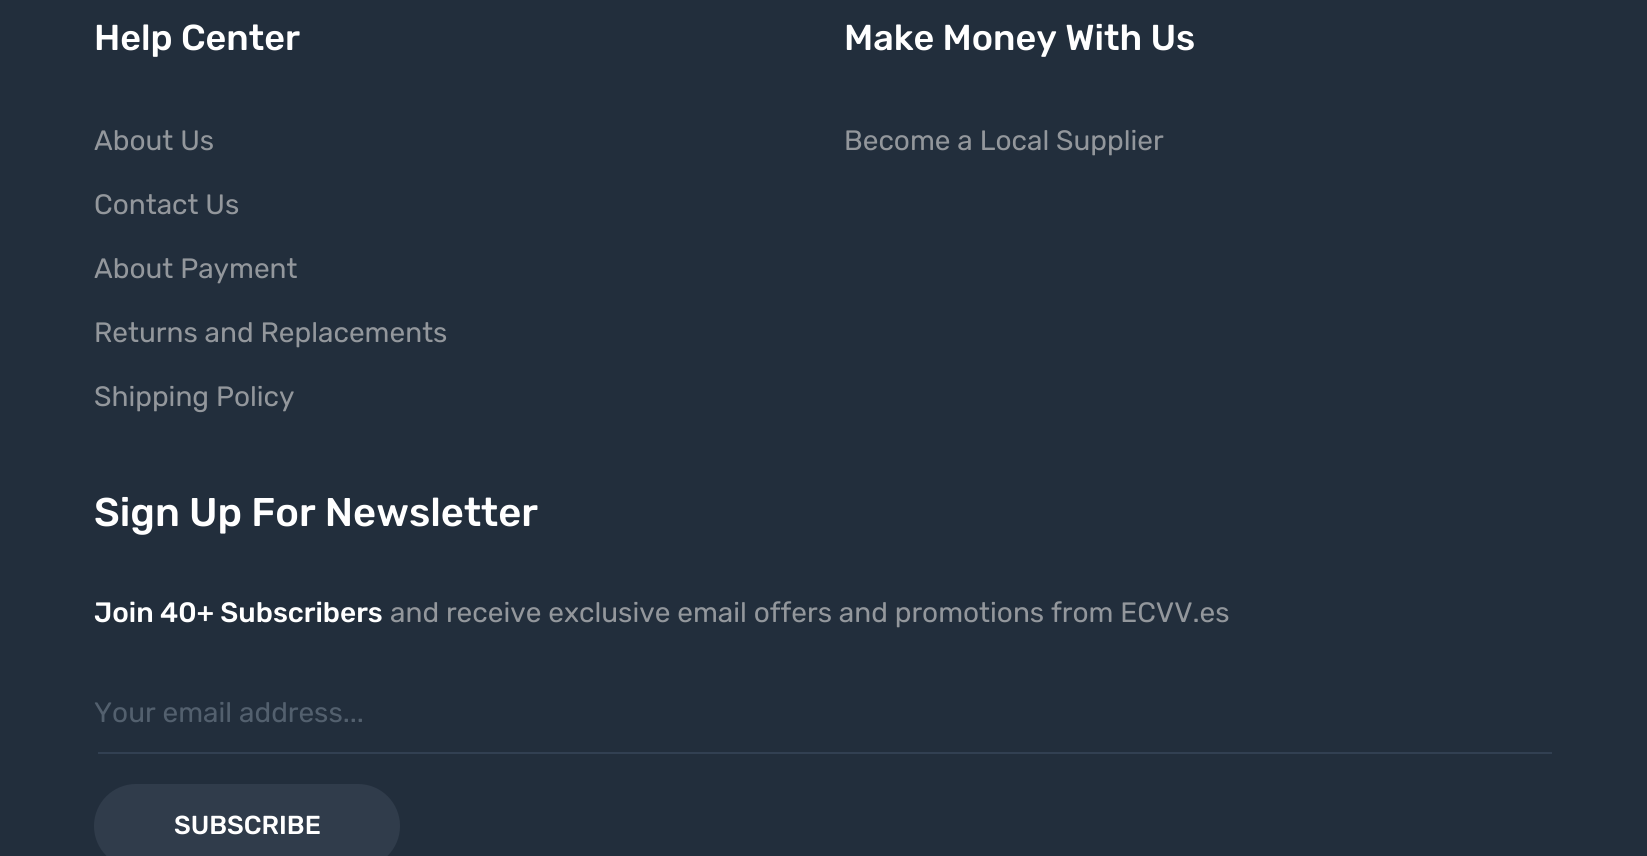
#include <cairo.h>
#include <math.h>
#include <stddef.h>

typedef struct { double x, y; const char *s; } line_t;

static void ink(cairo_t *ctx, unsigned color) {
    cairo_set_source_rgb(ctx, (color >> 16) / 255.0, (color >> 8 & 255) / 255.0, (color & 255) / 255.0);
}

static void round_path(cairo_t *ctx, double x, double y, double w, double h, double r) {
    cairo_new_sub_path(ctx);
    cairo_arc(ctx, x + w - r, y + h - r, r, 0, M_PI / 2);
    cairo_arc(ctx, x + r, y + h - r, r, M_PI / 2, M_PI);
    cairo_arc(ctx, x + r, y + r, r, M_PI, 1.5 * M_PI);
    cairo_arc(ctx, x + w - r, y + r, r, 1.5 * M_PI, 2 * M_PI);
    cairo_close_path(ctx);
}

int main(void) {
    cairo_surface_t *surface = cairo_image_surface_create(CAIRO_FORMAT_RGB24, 1647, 856);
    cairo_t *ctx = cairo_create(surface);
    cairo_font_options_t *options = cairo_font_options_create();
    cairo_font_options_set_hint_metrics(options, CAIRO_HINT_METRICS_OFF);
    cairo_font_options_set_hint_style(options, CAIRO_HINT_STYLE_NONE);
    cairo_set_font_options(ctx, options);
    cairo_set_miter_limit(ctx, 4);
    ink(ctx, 0x222E3C);
    cairo_paint(ctx);
    cairo_select_font_face(ctx, "Rubik Medium", CAIRO_FONT_SLANT_NORMAL, CAIRO_FONT_WEIGHT_NORMAL);
    cairo_set_font_size(ctx, 36);
    ink(ctx, 0xFFFFFF);
    cairo_move_to(ctx, 94, 50);
    cairo_show_text(ctx, "Help Center");
    cairo_select_font_face(ctx, "Rubik", CAIRO_FONT_SLANT_NORMAL, CAIRO_FONT_WEIGHT_NORMAL);
    cairo_set_font_size(ctx, 28);
    ink(ctx, 0x93979C);
    {
        static const line_t items[] = {
            {94, 150, "About Us"},
            {94, 214, "Contact Us"},
            {94, 278, "About Payment"},
            {94, 342, "Returns and Replacements"},
            {94, 406, "Shipping Policy"},
        };
        for (size_t i = 0; i < sizeof items / sizeof *items; i++) {
            cairo_move_to(ctx, items[i].x, items[i].y);
            cairo_show_text(ctx, items[i].s);
        }
    }
    cairo_select_font_face(ctx, "Rubik Medium", CAIRO_FONT_SLANT_NORMAL, CAIRO_FONT_WEIGHT_NORMAL);
    cairo_set_font_size(ctx, 36);
    ink(ctx, 0xFFFFFF);
    cairo_move_to(ctx, 844, 50);
    cairo_show_text(ctx, "Make Money With Us");
    cairo_select_font_face(ctx, "Rubik", CAIRO_FONT_SLANT_NORMAL, CAIRO_FONT_WEIGHT_NORMAL);
    cairo_set_font_size(ctx, 28);
    ink(ctx, 0x93979C);
    cairo_move_to(ctx, 844, 150);
    cairo_show_text(ctx, "Become a Local Supplier");
    cairo_select_font_face(ctx, "Rubik Medium", CAIRO_FONT_SLANT_NORMAL, CAIRO_FONT_WEIGHT_NORMAL);
    cairo_set_font_size(ctx, 40);
    ink(ctx, 0xFFFFFF);
    cairo_move_to(ctx, 94, 526);
    cairo_show_text(ctx, "Sign Up For Newsletter");
    cairo_set_font_size(ctx, 28);
    cairo_move_to(ctx, 94, 622);
    cairo_show_text(ctx, "Join 40+ Subscribers");
    cairo_select_font_face(ctx, "Rubik", CAIRO_FONT_SLANT_NORMAL, CAIRO_FONT_WEIGHT_NORMAL);
    ink(ctx, 0x93979C);
    cairo_move_to(ctx, 390, 622);
    cairo_show_text(ctx, "and receive exclusive email offers and promotions from ECVV.es");
    ink(ctx, 0x324052);
    cairo_rectangle(ctx, 98, 752, 1454, 2);
    cairo_fill(ctx);
    ink(ctx, 0x53606E);
    cairo_move_to(ctx, 94, 722);
    cairo_show_text(ctx, "Your email address...");
    ink(ctx, 0x303C4B);
    round_path(ctx, 94, 784, 306, 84, 42);
    cairo_fill(ctx);
    cairo_select_font_face(ctx, "Rubik Medium", CAIRO_FONT_SLANT_NORMAL, CAIRO_FONT_WEIGHT_NORMAL);
    cairo_set_font_size(ctx, 26);
    ink(ctx, 0xFFFFFF);
    cairo_move_to(ctx, 174, 834);
    cairo_show_text(ctx, "SUBSCRIBE");
    cairo_surface_write_to_png(surface, "image.png");
    cairo_font_options_destroy(options);
    cairo_destroy(ctx);
    cairo_surface_destroy(surface);
    return 0;
}
